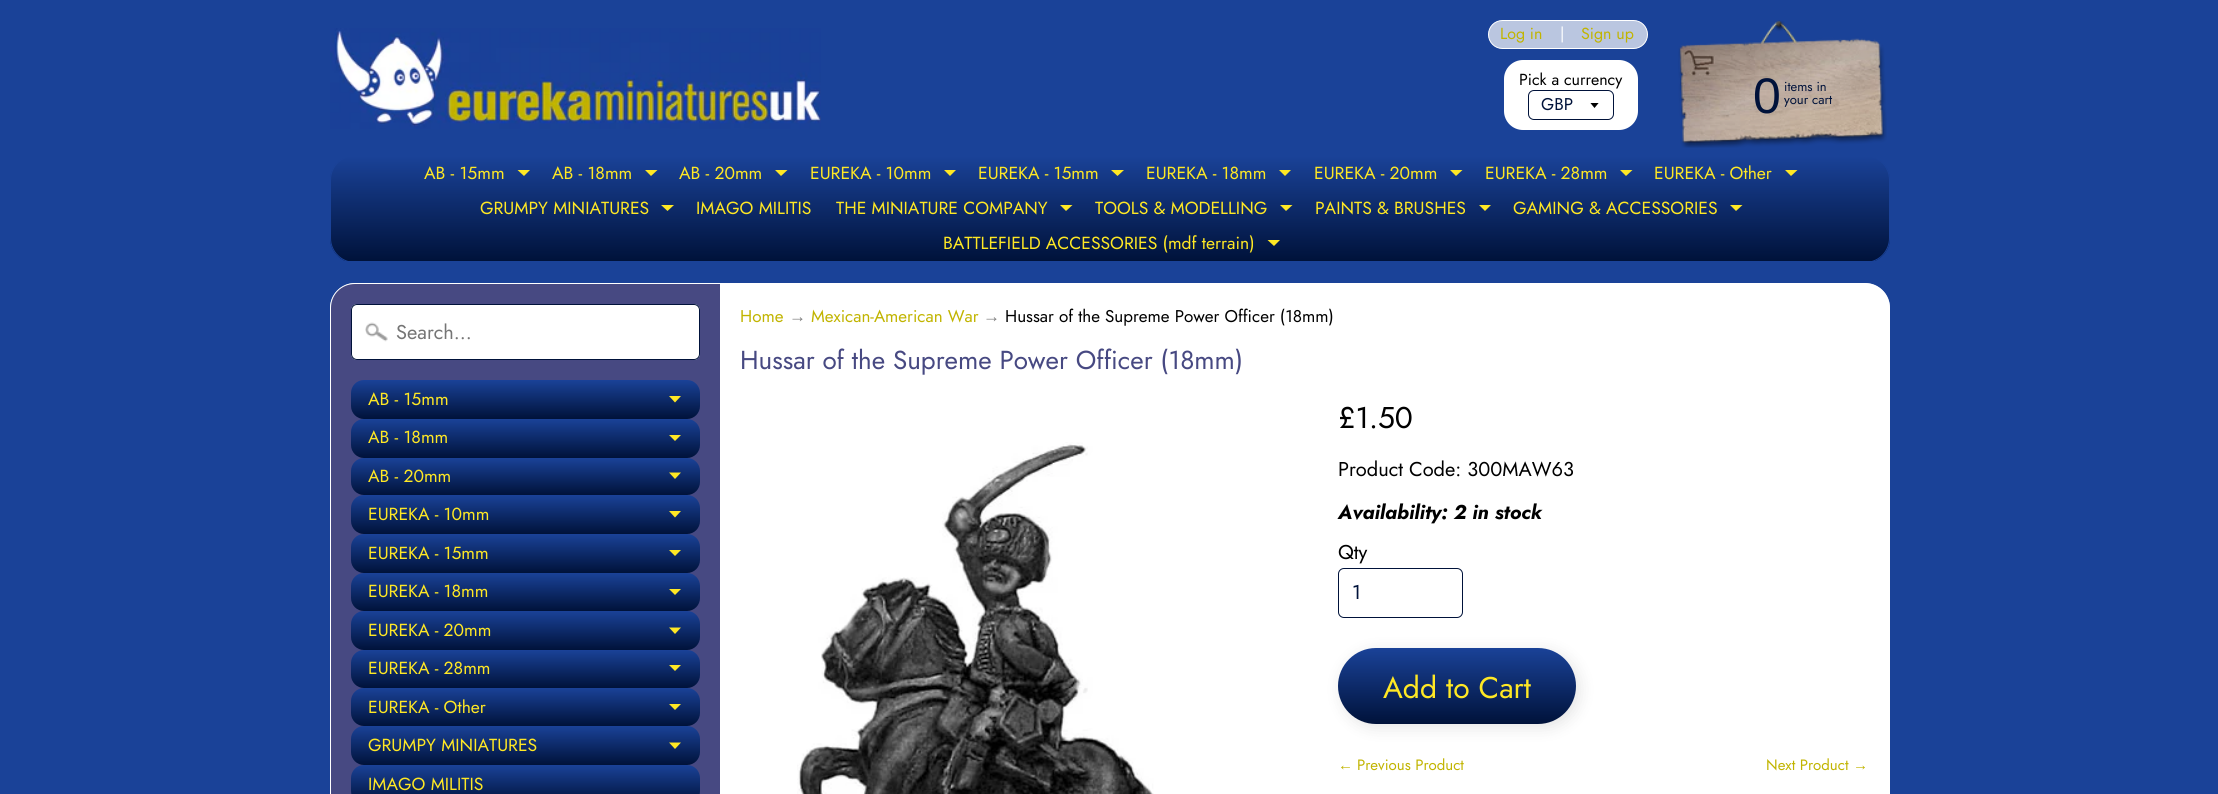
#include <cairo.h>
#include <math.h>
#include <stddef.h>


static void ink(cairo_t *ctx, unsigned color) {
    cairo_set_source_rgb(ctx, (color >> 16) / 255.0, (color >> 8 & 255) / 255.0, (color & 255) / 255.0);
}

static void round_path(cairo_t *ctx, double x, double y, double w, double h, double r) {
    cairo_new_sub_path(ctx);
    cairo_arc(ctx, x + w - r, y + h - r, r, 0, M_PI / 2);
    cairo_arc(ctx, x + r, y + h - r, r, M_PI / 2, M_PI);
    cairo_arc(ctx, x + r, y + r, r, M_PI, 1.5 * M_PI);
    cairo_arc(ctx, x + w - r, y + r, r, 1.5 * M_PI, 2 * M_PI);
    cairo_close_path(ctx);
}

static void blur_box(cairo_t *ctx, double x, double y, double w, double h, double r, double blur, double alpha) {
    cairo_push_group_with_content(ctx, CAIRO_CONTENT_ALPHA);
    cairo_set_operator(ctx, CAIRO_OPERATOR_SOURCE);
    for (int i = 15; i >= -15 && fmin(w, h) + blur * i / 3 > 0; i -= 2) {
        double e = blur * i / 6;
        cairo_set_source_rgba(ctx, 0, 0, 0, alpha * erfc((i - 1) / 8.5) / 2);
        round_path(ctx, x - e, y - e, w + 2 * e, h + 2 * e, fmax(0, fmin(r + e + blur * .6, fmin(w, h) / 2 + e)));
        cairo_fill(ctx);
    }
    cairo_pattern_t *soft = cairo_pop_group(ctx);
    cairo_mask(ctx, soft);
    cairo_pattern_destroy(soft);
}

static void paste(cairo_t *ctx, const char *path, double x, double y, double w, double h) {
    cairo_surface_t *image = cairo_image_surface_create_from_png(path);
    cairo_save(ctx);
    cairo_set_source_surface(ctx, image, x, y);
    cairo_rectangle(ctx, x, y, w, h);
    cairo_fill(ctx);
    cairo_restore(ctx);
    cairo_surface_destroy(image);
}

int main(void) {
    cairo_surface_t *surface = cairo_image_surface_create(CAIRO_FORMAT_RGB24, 2218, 794);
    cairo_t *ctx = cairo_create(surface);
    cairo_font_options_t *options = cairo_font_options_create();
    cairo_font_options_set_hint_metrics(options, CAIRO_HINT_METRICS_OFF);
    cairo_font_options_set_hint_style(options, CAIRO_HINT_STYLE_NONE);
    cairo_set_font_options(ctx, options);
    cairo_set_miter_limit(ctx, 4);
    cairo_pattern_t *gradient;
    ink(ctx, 0x1A4298);
    cairo_paint(ctx);
    paste(ctx, "media/1.png", 330, 28, 491, 101);
    ink(ctx, 0xBAC6E0);
    round_path(ctx, 1488.5, 20.5, 159, 28, 14);
    cairo_fill_preserve(ctx);
    ink(ctx, 0xFFFFFF);
    cairo_set_line_width(ctx, 1);
    cairo_stroke(ctx);
    cairo_select_font_face(ctx, "Jost", CAIRO_FONT_SLANT_NORMAL, CAIRO_FONT_WEIGHT_NORMAL);
    cairo_set_font_size(ctx, 16);
    ink(ctx, 0xC1B400);
    cairo_move_to(ctx, 1500, 39);
    cairo_show_text(ctx, "Log in");
    ink(ctx, 0xFFFFFF);
    cairo_move_to(ctx, 1560, 39);
    cairo_show_text(ctx, "|");
    ink(ctx, 0xC1B400);
    cairo_move_to(ctx, 1581, 39);
    cairo_show_text(ctx, "Sign up");
    paste(ctx, "media/2.png", 1678, 20, 209, 128);
    cairo_select_font_face(ctx, "Liberation Sans", CAIRO_FONT_SLANT_NORMAL, CAIRO_FONT_WEIGHT_NORMAL);
    cairo_set_font_size(ctx, 50);
    ink(ctx, 0x00123A);
    cairo_move_to(ctx, 1753, 113);
    cairo_show_text(ctx, "0");
    cairo_select_font_face(ctx, "Jost", CAIRO_FONT_SLANT_NORMAL, CAIRO_FONT_WEIGHT_NORMAL);
    cairo_set_font_size(ctx, 13);
    cairo_move_to(ctx, 1784, 91);
    cairo_show_text(ctx, "items in");
    cairo_move_to(ctx, 1784, 104);
    cairo_show_text(ctx, "your cart");
    cairo_save(ctx);
    round_path(ctx, 330, 155, 1560, 108, 25);
    cairo_clip(ctx);
    gradient = cairo_pattern_create_linear(1110, 156, 1110, 261);
    cairo_pattern_add_color_stop_rgba(gradient, 0, 0.102, 0.259, 0.596, 1);
    cairo_pattern_add_color_stop_rgba(gradient, 1, 0, 0.071, 0.227, 1);
    cairo_set_source(ctx, gradient);
    cairo_pattern_destroy(gradient);
    cairo_rectangle(ctx, 330, 156, 1560, 105);
    cairo_fill(ctx);
    cairo_restore(ctx);
    round_path(ctx, 330.5, 155.5, 1559, 107, 24.5);
    ink(ctx, 0x1A4298);
    cairo_stroke(ctx);
    cairo_set_font_size(ctx, 17.5);
    ink(ctx, 0xFFE824);
    cairo_move_to(ctx, 424, 179);
    cairo_show_text(ctx, "AB - 15mm");
    cairo_new_path(ctx);
    cairo_move_to(ctx, 517.5, 170);
    cairo_line_to(ctx, 530, 170);
    cairo_line_to(ctx, 524, 176);
    cairo_close_path(ctx);
    cairo_fill(ctx);
    cairo_move_to(ctx, 552, 179);
    cairo_show_text(ctx, "AB - 18mm");
    cairo_new_path(ctx);
    cairo_move_to(ctx, 645, 170);
    cairo_line_to(ctx, 657.5, 170);
    cairo_line_to(ctx, 651, 176);
    cairo_close_path(ctx);
    cairo_fill(ctx);
    cairo_move_to(ctx, 679, 179);
    cairo_show_text(ctx, "AB - 20mm");
    cairo_new_path(ctx);
    cairo_move_to(ctx, 775, 170);
    cairo_line_to(ctx, 787.5, 170);
    cairo_line_to(ctx, 781, 176);
    cairo_close_path(ctx);
    cairo_fill(ctx);
    cairo_move_to(ctx, 810, 179);
    cairo_show_text(ctx, "EUREKA - 10mm");
    cairo_new_path(ctx);
    cairo_move_to(ctx, 944, 170);
    cairo_line_to(ctx, 956, 170);
    cairo_line_to(ctx, 950, 176);
    cairo_close_path(ctx);
    cairo_fill(ctx);
    cairo_move_to(ctx, 978, 179);
    cairo_show_text(ctx, "EUREKA - 15mm");
    cairo_new_path(ctx);
    cairo_move_to(ctx, 1111, 170);
    cairo_line_to(ctx, 1124, 170);
    cairo_line_to(ctx, 1117.5, 176);
    cairo_close_path(ctx);
    cairo_fill(ctx);
    cairo_move_to(ctx, 1146, 179);
    cairo_show_text(ctx, "EUREKA - 18mm");
    cairo_new_path(ctx);
    cairo_move_to(ctx, 1279, 170);
    cairo_line_to(ctx, 1291, 170);
    cairo_line_to(ctx, 1285, 176);
    cairo_close_path(ctx);
    cairo_fill(ctx);
    cairo_move_to(ctx, 1314, 179);
    cairo_show_text(ctx, "EUREKA - 20mm");
    cairo_new_path(ctx);
    cairo_move_to(ctx, 1450, 170);
    cairo_line_to(ctx, 1462.5, 170);
    cairo_line_to(ctx, 1456, 176);
    cairo_close_path(ctx);
    cairo_fill(ctx);
    cairo_move_to(ctx, 1485, 179);
    cairo_show_text(ctx, "EUREKA - 28mm");
    cairo_new_path(ctx);
    cairo_move_to(ctx, 1620, 170);
    cairo_line_to(ctx, 1632.5, 170);
    cairo_line_to(ctx, 1626, 176);
    cairo_close_path(ctx);
    cairo_fill(ctx);
    cairo_move_to(ctx, 1654, 179);
    cairo_show_text(ctx, "EUREKA - Other");
    cairo_new_path(ctx);
    cairo_move_to(ctx, 1785, 170);
    cairo_line_to(ctx, 1797.5, 170);
    cairo_line_to(ctx, 1791, 176);
    cairo_close_path(ctx);
    cairo_fill(ctx);
    cairo_move_to(ctx, 480, 214);
    cairo_show_text(ctx, "GRUMPY MINIATURES");
    cairo_new_path(ctx);
    cairo_move_to(ctx, 661, 205);
    cairo_line_to(ctx, 674, 205);
    cairo_line_to(ctx, 667.5, 211);
    cairo_close_path(ctx);
    cairo_fill(ctx);
    cairo_move_to(ctx, 696, 214);
    cairo_show_text(ctx, "IMAGO MILITIS");
    cairo_move_to(ctx, 836, 214);
    cairo_show_text(ctx, "THE MINIATURE COMPANY");
    cairo_new_path(ctx);
    cairo_move_to(ctx, 1060, 205);
    cairo_line_to(ctx, 1072.5, 205);
    cairo_line_to(ctx, 1066, 211);
    cairo_close_path(ctx);
    cairo_fill(ctx);
    cairo_move_to(ctx, 1095, 214);
    cairo_show_text(ctx, "TOOLS & MODELLING");
    cairo_new_path(ctx);
    cairo_move_to(ctx, 1280, 205);
    cairo_line_to(ctx, 1292.5, 205);
    cairo_line_to(ctx, 1286, 211);
    cairo_close_path(ctx);
    cairo_fill(ctx);
    cairo_move_to(ctx, 1315, 214);
    cairo_show_text(ctx, "PAINTS & BRUSHES");
    cairo_new_path(ctx);
    cairo_move_to(ctx, 1479, 205);
    cairo_line_to(ctx, 1491, 205);
    cairo_line_to(ctx, 1485, 211);
    cairo_close_path(ctx);
    cairo_fill(ctx);
    cairo_move_to(ctx, 1513, 214);
    cairo_show_text(ctx, "GAMING & ACCESSORIES");
    cairo_new_path(ctx);
    cairo_move_to(ctx, 1730, 205);
    cairo_line_to(ctx, 1742.5, 205);
    cairo_line_to(ctx, 1736, 211);
    cairo_close_path(ctx);
    cairo_fill(ctx);
    cairo_move_to(ctx, 943, 249);
    cairo_show_text(ctx, "BATTLEFIELD ACCESSORIES (mdf terrain)");
    cairo_new_path(ctx);
    cairo_move_to(ctx, 1267.5, 240);
    cairo_line_to(ctx, 1280, 240);
    cairo_line_to(ctx, 1274, 246);
    cairo_close_path(ctx);
    cairo_fill(ctx);
    ink(ctx, 0xFFFFFF);
    round_path(ctx, 1504, 60, 134, 70, 19);
    cairo_fill(ctx);
    cairo_set_font_size(ctx, 16);
    ink(ctx, 0x000000);
    cairo_move_to(ctx, 1519, 85);
    cairo_show_text(ctx, "Pick a currency");
    cairo_save(ctx);
    cairo_rectangle(ctx, 1590, 103, 10, 6);
    cairo_clip(ctx);
    cairo_new_path(ctx);
    cairo_move_to(ctx, 1590, 102.5);
    cairo_line_to(ctx, 1594.5, 108);
    cairo_line_to(ctx, 1599, 102.5);
    cairo_close_path(ctx);
    cairo_fill(ctx);
    cairo_restore(ctx);
    round_path(ctx, 1528.5, 90.5, 85, 29, 5.5);
    ink(ctx, 0x00123A);
    cairo_stroke(ctx);
    cairo_set_font_size(ctx, 17);
    cairo_move_to(ctx, 1541, 110);
    cairo_show_text(ctx, "GBP");
    ink(ctx, 0xFFFFFF);
    round_path(ctx, 330, 283, 1560, 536, 25);
    cairo_fill(ctx);
    round_path(ctx, 330.5, 283.5, 1559, 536, 24.5);
    cairo_set_source_rgba(ctx, 1, 1, 1, 0.7);
    cairo_stroke(ctx);
    ink(ctx, 0x474982);
    cairo_new_path(ctx);
    cairo_move_to(ctx, 355, 284);
    cairo_line_to(ctx, 720, 284);
    cairo_line_to(ctx, 720, 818);
    cairo_line_to(ctx, 355, 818);
    cairo_curve_to(ctx, 341.5, 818, 331, 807.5, 331, 794);
    cairo_line_to(ctx, 331, 308);
    cairo_curve_to(ctx, 331, 294.5, 341.5, 284, 355, 284);
    cairo_close_path(ctx);
    cairo_fill(ctx);
    ink(ctx, 0xFFFFFF);
    round_path(ctx, 351, 304, 349, 56, 6);
    cairo_fill(ctx);
    paste(ctx, "media/3.png", 365, 322, 23, 20);
    round_path(ctx, 351.5, 304.5, 348, 55, 5.5);
    ink(ctx, 0x00123A);
    cairo_stroke(ctx);
    cairo_set_font_size(ctx, 20);
    ink(ctx, 0x757575);
    cairo_move_to(ctx, 396, 339);
    cairo_show_text(ctx, "Search...");
    gradient = cairo_pattern_create_linear(526, 380, 526, 419);
    cairo_pattern_add_color_stop_rgba(gradient, 0, 0.102, 0.259, 0.596, 1);
    cairo_pattern_add_color_stop_rgba(gradient, 1, 0, 0.071, 0.227, 1);
    cairo_set_source(ctx, gradient);
    cairo_pattern_destroy(gradient);
    round_path(ctx, 351, 380, 349, 39, 13);
    cairo_fill(ctx);
    cairo_set_font_size(ctx, 17.5);
    ink(ctx, 0xFFE824);
    cairo_move_to(ctx, 368, 405);
    cairo_show_text(ctx, "AB - 15mm");
    cairo_new_path(ctx);
    cairo_move_to(ctx, 669, 396);
    cairo_line_to(ctx, 681, 396);
    cairo_line_to(ctx, 675, 402.5);
    cairo_close_path(ctx);
    cairo_fill(ctx);
    gradient = cairo_pattern_create_linear(526, 419, 526, 458);
    cairo_pattern_add_color_stop_rgba(gradient, 0, 0.102, 0.259, 0.596, 1);
    cairo_pattern_add_color_stop_rgba(gradient, 1, 0, 0.071, 0.227, 1);
    cairo_set_source(ctx, gradient);
    cairo_pattern_destroy(gradient);
    round_path(ctx, 351, 419, 349, 39, 13);
    cairo_fill(ctx);
    ink(ctx, 0xFFE824);
    cairo_move_to(ctx, 368, 443);
    cairo_show_text(ctx, "AB - 18mm");
    cairo_new_path(ctx);
    cairo_move_to(ctx, 669, 435);
    cairo_line_to(ctx, 681, 435);
    cairo_line_to(ctx, 675, 441);
    cairo_close_path(ctx);
    cairo_fill(ctx);
    gradient = cairo_pattern_create_linear(526, 458, 526, 495);
    cairo_pattern_add_color_stop_rgba(gradient, 0, 0.102, 0.259, 0.596, 1);
    cairo_pattern_add_color_stop_rgba(gradient, 1, 0, 0.071, 0.227, 1);
    cairo_set_source(ctx, gradient);
    cairo_pattern_destroy(gradient);
    round_path(ctx, 351, 458, 349, 37, 13);
    cairo_fill(ctx);
    ink(ctx, 0xFFE824);
    cairo_move_to(ctx, 368, 482);
    cairo_show_text(ctx, "AB - 20mm");
    cairo_new_path(ctx);
    cairo_move_to(ctx, 669, 472.5);
    cairo_line_to(ctx, 681, 472.5);
    cairo_line_to(ctx, 675, 479);
    cairo_close_path(ctx);
    cairo_fill(ctx);
    gradient = cairo_pattern_create_linear(526, 495, 526, 534);
    cairo_pattern_add_color_stop_rgba(gradient, 0, 0.102, 0.259, 0.596, 1);
    cairo_pattern_add_color_stop_rgba(gradient, 1, 0, 0.071, 0.227, 1);
    cairo_set_source(ctx, gradient);
    cairo_pattern_destroy(gradient);
    round_path(ctx, 351, 495, 349, 39, 13);
    cairo_fill(ctx);
    ink(ctx, 0xFFE824);
    cairo_move_to(ctx, 368, 520);
    cairo_show_text(ctx, "EUREKA - 10mm");
    cairo_new_path(ctx);
    cairo_move_to(ctx, 669, 511);
    cairo_line_to(ctx, 681, 511);
    cairo_line_to(ctx, 675, 517.5);
    cairo_close_path(ctx);
    cairo_fill(ctx);
    gradient = cairo_pattern_create_linear(526, 534, 526, 573);
    cairo_pattern_add_color_stop_rgba(gradient, 0, 0.102, 0.259, 0.596, 1);
    cairo_pattern_add_color_stop_rgba(gradient, 1, 0, 0.071, 0.227, 1);
    cairo_set_source(ctx, gradient);
    cairo_pattern_destroy(gradient);
    round_path(ctx, 351, 534, 349, 39, 13);
    cairo_fill(ctx);
    ink(ctx, 0xFFE824);
    cairo_move_to(ctx, 368, 559);
    cairo_show_text(ctx, "EUREKA - 15mm");
    cairo_new_path(ctx);
    cairo_move_to(ctx, 669, 550);
    cairo_line_to(ctx, 681, 550);
    cairo_line_to(ctx, 675, 556);
    cairo_close_path(ctx);
    cairo_fill(ctx);
    gradient = cairo_pattern_create_linear(526, 573, 526, 611);
    cairo_pattern_add_color_stop_rgba(gradient, 0, 0.102, 0.259, 0.596, 1);
    cairo_pattern_add_color_stop_rgba(gradient, 1, 0, 0.071, 0.227, 1);
    cairo_set_source(ctx, gradient);
    cairo_pattern_destroy(gradient);
    round_path(ctx, 351, 573, 349, 38, 13);
    cairo_fill(ctx);
    ink(ctx, 0xFFE824);
    cairo_move_to(ctx, 368, 597);
    cairo_show_text(ctx, "EUREKA - 18mm");
    cairo_new_path(ctx);
    cairo_move_to(ctx, 669, 589);
    cairo_line_to(ctx, 681, 589);
    cairo_line_to(ctx, 675, 595);
    cairo_close_path(ctx);
    cairo_fill(ctx);
    gradient = cairo_pattern_create_linear(526, 611, 526, 650);
    cairo_pattern_add_color_stop_rgba(gradient, 0, 0.102, 0.259, 0.596, 1);
    cairo_pattern_add_color_stop_rgba(gradient, 1, 0, 0.071, 0.227, 1);
    cairo_set_source(ctx, gradient);
    cairo_pattern_destroy(gradient);
    round_path(ctx, 351, 611, 349, 39, 13);
    cairo_fill(ctx);
    ink(ctx, 0xFFE824);
    cairo_move_to(ctx, 368, 636);
    cairo_show_text(ctx, "EUREKA - 20mm");
    cairo_new_path(ctx);
    cairo_move_to(ctx, 669, 627.5);
    cairo_line_to(ctx, 681, 627.5);
    cairo_line_to(ctx, 675, 634);
    cairo_close_path(ctx);
    cairo_fill(ctx);
    gradient = cairo_pattern_create_linear(526, 650, 526, 688);
    cairo_pattern_add_color_stop_rgba(gradient, 0, 0.102, 0.259, 0.596, 1);
    cairo_pattern_add_color_stop_rgba(gradient, 1, 0, 0.071, 0.227, 1);
    cairo_set_source(ctx, gradient);
    cairo_pattern_destroy(gradient);
    round_path(ctx, 351, 650, 349, 38, 13);
    cairo_fill(ctx);
    ink(ctx, 0xFFE824);
    cairo_move_to(ctx, 368, 674);
    cairo_show_text(ctx, "EUREKA - 28mm");
    cairo_new_path(ctx);
    cairo_move_to(ctx, 669, 665);
    cairo_line_to(ctx, 681, 665);
    cairo_line_to(ctx, 675, 671);
    cairo_close_path(ctx);
    cairo_fill(ctx);
    gradient = cairo_pattern_create_linear(526, 688, 526, 726);
    cairo_pattern_add_color_stop_rgba(gradient, 0, 0.102, 0.259, 0.596, 1);
    cairo_pattern_add_color_stop_rgba(gradient, 1, 0, 0.071, 0.227, 1);
    cairo_set_source(ctx, gradient);
    cairo_pattern_destroy(gradient);
    round_path(ctx, 351, 688, 349, 38, 13);
    cairo_fill(ctx);
    ink(ctx, 0xFFE824);
    cairo_move_to(ctx, 368, 713);
    cairo_show_text(ctx, "EUREKA - Other");
    cairo_new_path(ctx);
    cairo_move_to(ctx, 669, 704);
    cairo_line_to(ctx, 681, 704);
    cairo_line_to(ctx, 675, 710);
    cairo_close_path(ctx);
    cairo_fill(ctx);
    gradient = cairo_pattern_create_linear(526, 726, 526, 765);
    cairo_pattern_add_color_stop_rgba(gradient, 0, 0.102, 0.259, 0.596, 1);
    cairo_pattern_add_color_stop_rgba(gradient, 1, 0, 0.071, 0.227, 1);
    cairo_set_source(ctx, gradient);
    cairo_pattern_destroy(gradient);
    round_path(ctx, 351, 726, 349, 39, 13);
    cairo_fill(ctx);
    ink(ctx, 0xFFE824);
    cairo_move_to(ctx, 368, 751);
    cairo_show_text(ctx, "GRUMPY MINIATURES");
    cairo_new_path(ctx);
    cairo_move_to(ctx, 669, 742.5);
    cairo_line_to(ctx, 681, 742.5);
    cairo_line_to(ctx, 675, 749);
    cairo_close_path(ctx);
    cairo_fill(ctx);
    gradient = cairo_pattern_create_linear(526, 765, 526, 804);
    cairo_pattern_add_color_stop_rgba(gradient, 0, 0.102, 0.259, 0.596, 1);
    cairo_pattern_add_color_stop_rgba(gradient, 1, 0, 0.071, 0.227, 1);
    cairo_set_source(ctx, gradient);
    cairo_pattern_destroy(gradient);
    round_path(ctx, 351, 765, 349, 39, 13);
    cairo_fill(ctx);
    ink(ctx, 0xFFE824);
    cairo_move_to(ctx, 368, 790);
    cairo_show_text(ctx, "IMAGO MILITIS");
    cairo_set_font_size(ctx, 17);
    ink(ctx, 0xC1B400);
    cairo_move_to(ctx, 740, 322);
    cairo_show_text(ctx, "Home");
    cairo_select_font_face(ctx, "Liberation Sans", CAIRO_FONT_SLANT_NORMAL, CAIRO_FONT_WEIGHT_NORMAL);
    ink(ctx, 0x808080);
    cairo_move_to(ctx, 789, 322);
    cairo_show_text(ctx, "→");
    cairo_select_font_face(ctx, "Jost", CAIRO_FONT_SLANT_NORMAL, CAIRO_FONT_WEIGHT_NORMAL);
    ink(ctx, 0xC1B400);
    cairo_move_to(ctx, 811, 322);
    cairo_show_text(ctx, "Mexican-American War");
    cairo_select_font_face(ctx, "Liberation Sans", CAIRO_FONT_SLANT_NORMAL, CAIRO_FONT_WEIGHT_NORMAL);
    ink(ctx, 0x808080);
    cairo_move_to(ctx, 983, 322);
    cairo_show_text(ctx, "→");
    cairo_select_font_face(ctx, "Jost", CAIRO_FONT_SLANT_NORMAL, CAIRO_FONT_WEIGHT_NORMAL);
    ink(ctx, 0x000000);
    cairo_move_to(ctx, 1005, 322);
    cairo_show_text(ctx, "Hussar of the Supreme Power Officer (18mm)");
    cairo_set_font_size(ctx, 26);
    ink(ctx, 0x474982);
    cairo_move_to(ctx, 740, 369);
    cairo_show_text(ctx, "Hussar of the Supreme Power Officer (18mm)");
    paste(ctx, "media/4.png", 797, 442, 357, 352);
    cairo_set_font_size(ctx, 30);
    ink(ctx, 0x000000);
    cairo_move_to(ctx, 1338, 428);
    cairo_show_text(ctx, "£1.50");
    cairo_set_font_size(ctx, 20);
    cairo_move_to(ctx, 1338, 476);
    cairo_show_text(ctx, "Product Code: 300MAW63");
    cairo_select_font_face(ctx, "Jost", CAIRO_FONT_SLANT_ITALIC, CAIRO_FONT_WEIGHT_BOLD);
    cairo_move_to(ctx, 1338, 519);
    cairo_show_text(ctx, "Availability: 2 in stock");
    cairo_select_font_face(ctx, "Jost", CAIRO_FONT_SLANT_NORMAL, CAIRO_FONT_WEIGHT_NORMAL);
    cairo_move_to(ctx, 1338, 559);
    cairo_show_text(ctx, "Qty");
    round_path(ctx, 1338.5, 568.5, 124, 49, 5.5);
    ink(ctx, 0x00123A);
    cairo_stroke(ctx);
    cairo_move_to(ctx, 1352, 599);
    cairo_show_text(ctx, "1");
    ink(ctx, 0x000000);
    blur_box(ctx, 1341, 651, 239, 77, 38.5, 7.5, 0.1);
    gradient = cairo_pattern_create_linear(1457, 648, 1457, 724);
    cairo_pattern_add_color_stop_rgba(gradient, 0, 0.102, 0.259, 0.596, 1);
    cairo_pattern_add_color_stop_rgba(gradient, 1, 0, 0.071, 0.227, 1);
    cairo_set_source(ctx, gradient);
    cairo_pattern_destroy(gradient);
    round_path(ctx, 1338, 648, 238, 76, 38);
    cairo_fill(ctx);
    cairo_set_font_size(ctx, 30);
    ink(ctx, 0xFFE824);
    cairo_move_to(ctx, 1383, 698);
    cairo_show_text(ctx, "Add to Cart");
    cairo_select_font_face(ctx, "Liberation Sans", CAIRO_FONT_SLANT_NORMAL, CAIRO_FONT_WEIGHT_NORMAL);
    cairo_set_font_size(ctx, 15);
    ink(ctx, 0xC1B400);
    cairo_move_to(ctx, 1338, 770);
    cairo_show_text(ctx, "←");
    cairo_select_font_face(ctx, "Jost", CAIRO_FONT_SLANT_NORMAL, CAIRO_FONT_WEIGHT_NORMAL);
    cairo_move_to(ctx, 1357, 770);
    cairo_show_text(ctx, "Previous Product");
    cairo_move_to(ctx, 1766, 770);
    cairo_show_text(ctx, "Next Product");
    cairo_select_font_face(ctx, "Liberation Sans", CAIRO_FONT_SLANT_NORMAL, CAIRO_FONT_WEIGHT_NORMAL);
    cairo_move_to(ctx, 1853, 770);
    cairo_show_text(ctx, "→");
    cairo_surface_write_to_png(surface, "image.png");
    cairo_font_options_destroy(options);
    cairo_destroy(ctx);
    cairo_surface_destroy(surface);
    return 0;
}
